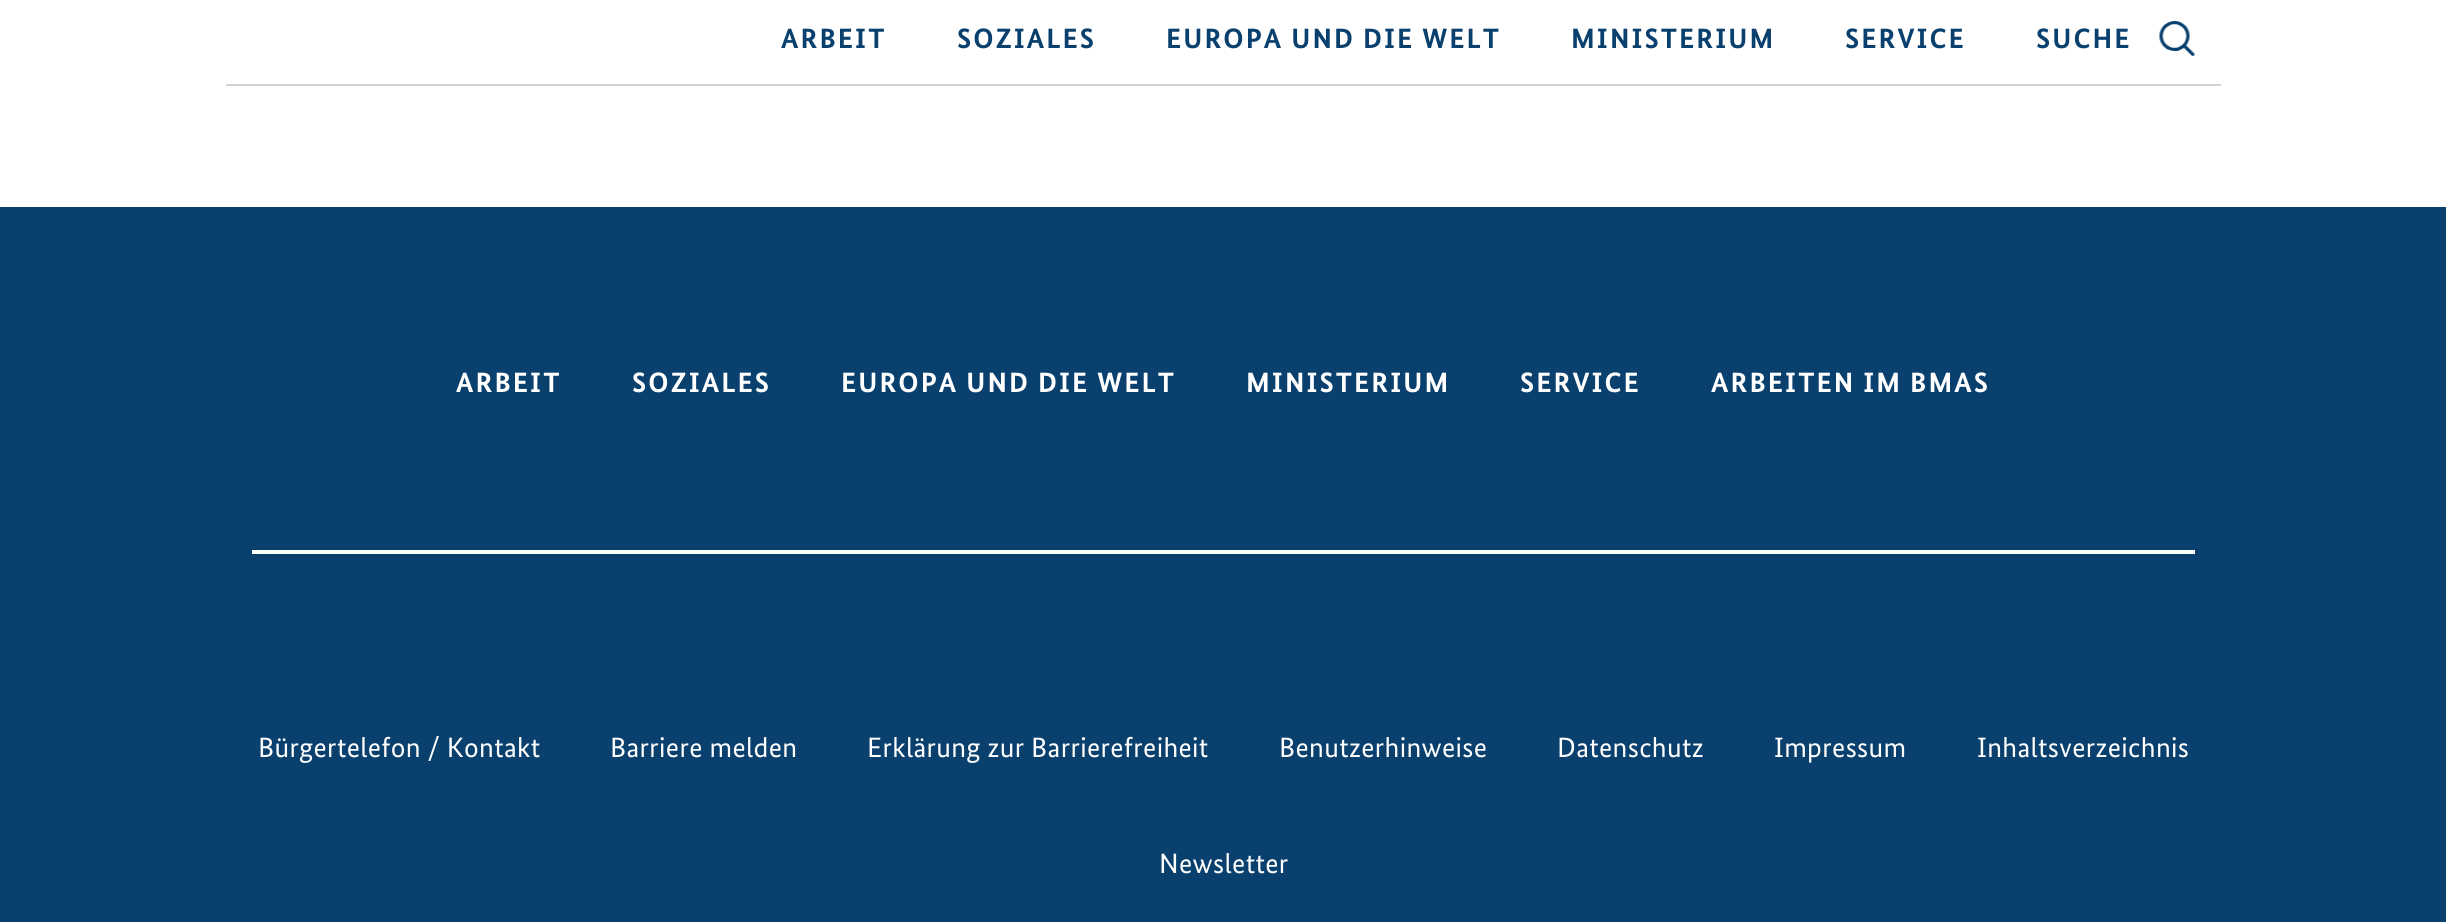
#include <cairo.h>
#include <math.h>
#include <stddef.h>

typedef struct { double x, y; const char *s; } line_t;

static void ink(cairo_t *ctx, unsigned color) {
    cairo_set_source_rgb(ctx, (color >> 16) / 255.0, (color >> 8 & 255) / 255.0, (color & 255) / 255.0);
}

static void write_spaced(cairo_t *ctx, double x, double y, const char *s, double letter, double word) {
    cairo_move_to(ctx, x, y);
    while (*s) {
        char ch[5] = {0};
        int n = 0;
        do ch[n++] = *s++; while ((*s & 0xC0) == 0x80);
        cairo_show_text(ctx, ch);
        cairo_rel_move_to(ctx, letter + word * (*ch == ' '), 0);
    }
}

static void paste(cairo_t *ctx, const char *path, double x, double y, double w, double h) {
    cairo_surface_t *image = cairo_image_surface_create_from_png(path);
    cairo_save(ctx);
    cairo_set_source_surface(ctx, image, x, y);
    cairo_rectangle(ctx, x, y, w, h);
    cairo_fill(ctx);
    cairo_restore(ctx);
    cairo_surface_destroy(image);
}

int main(void) {
    cairo_surface_t *surface = cairo_image_surface_create(CAIRO_FORMAT_RGB24, 2446, 922);
    cairo_t *ctx = cairo_create(surface);
    cairo_font_options_t *options = cairo_font_options_create();
    cairo_font_options_set_hint_metrics(options, CAIRO_HINT_METRICS_OFF);
    cairo_font_options_set_hint_style(options, CAIRO_HINT_STYLE_NONE);
    cairo_set_font_options(ctx, options);
    cairo_set_miter_limit(ctx, 4);
    ink(ctx, 0xFFFFFF);
    cairo_paint(ctx);
    ink(ctx, 0xD3D3D3);
    cairo_rectangle(ctx, 226, 84, 1995, 2);
    cairo_fill(ctx);
    cairo_select_font_face(ctx, "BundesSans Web", CAIRO_FONT_SLANT_NORMAL, CAIRO_FONT_WEIGHT_BOLD);
    cairo_set_font_size(ctx, 28);
    ink(ctx, 0x0A406E);
    {
        static const line_t items[] = {
            {781, 48, "ARBEIT"},
            {957, 48, "SOZIALES"},
            {1166, 48, "EUROPA UND DIE WELT"},
            {1571, 48, "MINISTERIUM"},
            {1845, 48, "SERVICE"},
            {2036, 48, "SUCHE"},
        };
        for (size_t i = 0; i < sizeof items / sizeof *items; i++) {
            write_spaced(ctx, items[i].x, items[i].y, items[i].s, 2.1, 0);
        }
    }
    paste(ctx, "media/1.png", 2159, 21, 36, 35);
    cairo_rectangle(ctx, 0, 207, 2446, 715);
    cairo_fill(ctx);
    ink(ctx, 0xFFFFFF);
    {
        static const line_t items[] = {
            {456, 392, "ARBEIT"},
            {632, 392, "SOZIALES"},
            {841, 392, "EUROPA UND DIE WELT"},
            {1246, 392, "MINISTERIUM"},
            {1520, 392, "SERVICE"},
            {1711, 392, "ARBEITEN IM BMAS"},
        };
        for (size_t i = 0; i < sizeof items / sizeof *items; i++) {
            write_spaced(ctx, items[i].x, items[i].y, items[i].s, 2.1, 0);
        }
    }
    cairo_rectangle(ctx, 252, 550, 1943, 4);
    cairo_fill(ctx);
    cairo_select_font_face(ctx, "BundesSans Web", CAIRO_FONT_SLANT_NORMAL, CAIRO_FONT_WEIGHT_NORMAL);
    {
        static const line_t items[] = {
            {258, 757, "Bürgertelefon / Kontakt"},
            {610, 757, "Barriere melden"},
            {867, 757, "Erklärung zur Barrierefreiheit"},
            {1279, 757, "Benutzerhinweise"},
            {1557, 757, "Datenschutz"},
            {1774, 757, "Impressum"},
            {1977, 757, "Inhaltsverzeichnis"},
            {1159, 873, "Newsletter"},
        };
        for (size_t i = 0; i < sizeof items / sizeof *items; i++) {
            write_spaced(ctx, items[i].x, items[i].y, items[i].s, 0.35, 0);
        }
    }
    cairo_surface_write_to_png(surface, "image.png");
    cairo_font_options_destroy(options);
    cairo_destroy(ctx);
    cairo_surface_destroy(surface);
    return 0;
}
